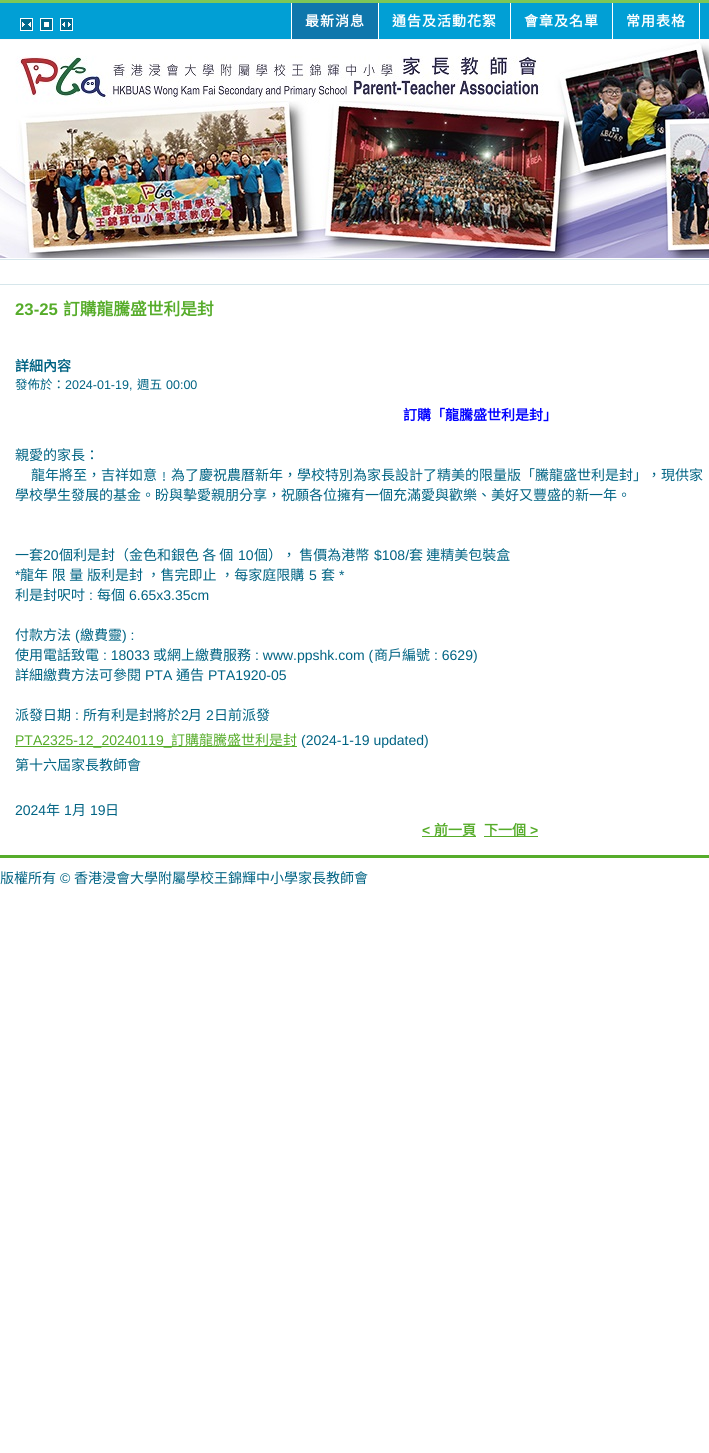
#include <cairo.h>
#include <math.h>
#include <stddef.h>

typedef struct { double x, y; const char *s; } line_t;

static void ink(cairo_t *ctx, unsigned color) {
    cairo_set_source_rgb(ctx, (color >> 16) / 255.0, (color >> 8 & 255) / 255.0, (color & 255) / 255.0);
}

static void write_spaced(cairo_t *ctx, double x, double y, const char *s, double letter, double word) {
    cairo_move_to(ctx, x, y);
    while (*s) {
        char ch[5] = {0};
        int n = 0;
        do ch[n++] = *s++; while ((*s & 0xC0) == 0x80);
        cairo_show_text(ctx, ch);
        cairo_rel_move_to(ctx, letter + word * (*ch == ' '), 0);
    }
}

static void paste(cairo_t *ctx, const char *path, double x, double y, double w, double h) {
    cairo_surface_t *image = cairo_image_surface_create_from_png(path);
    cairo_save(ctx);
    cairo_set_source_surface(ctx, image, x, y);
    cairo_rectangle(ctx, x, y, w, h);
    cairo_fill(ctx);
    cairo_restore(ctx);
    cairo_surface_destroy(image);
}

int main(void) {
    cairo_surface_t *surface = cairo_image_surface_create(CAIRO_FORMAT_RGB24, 709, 1453);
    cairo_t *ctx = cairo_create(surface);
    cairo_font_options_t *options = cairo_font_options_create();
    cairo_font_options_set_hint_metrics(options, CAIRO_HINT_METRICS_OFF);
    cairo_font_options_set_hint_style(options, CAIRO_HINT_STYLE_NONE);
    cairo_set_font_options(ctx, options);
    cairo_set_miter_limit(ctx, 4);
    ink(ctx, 0xFFFFFF);
    cairo_paint(ctx);
    paste(ctx, "media/1.png", 0, 0, 709, 40);
    ink(ctx, 0x019FD5);
    cairo_rectangle(ctx, 0, 3, 709, 36);
    cairo_fill(ctx);
    paste(ctx, "media/2.png", 20, 18, 13, 13);
    paste(ctx, "media/3.png", 40, 18, 13, 13);
    paste(ctx, "media/4.png", 60, 18, 13, 13);
    ink(ctx, 0x0F77AC);
    cairo_rectangle(ctx, 292, 3, 86, 36);
    cairo_fill(ctx);
    ink(ctx, 0xFFFFFF);
    cairo_rectangle(ctx, 291, 3, 1, 36);
    cairo_fill(ctx);
    cairo_select_font_face(ctx, "Noto Sans CJK TC", CAIRO_FONT_SLANT_NORMAL, CAIRO_FONT_WEIGHT_BOLD);
    cairo_set_font_size(ctx, 14);
    write_spaced(ctx, 305, 26, "最新消息", 1, 0);
    cairo_rectangle(ctx, 378, 3, 1, 36);
    cairo_fill(ctx);
    write_spaced(ctx, 392, 26, "通告及活動花絮", 1, 0);
    cairo_rectangle(ctx, 510, 3, 1, 36);
    cairo_fill(ctx);
    write_spaced(ctx, 524, 26, "會章及名單", 1, 0);
    cairo_rectangle(ctx, 612, 3, 1, 36);
    cairo_fill(ctx);
    write_spaced(ctx, 626, 26, "常用表格", 1, 0);
    cairo_rectangle(ctx, 699, 3, 1, 36);
    cairo_fill(ctx);
    paste(ctx, "media/5.png", 0, 40, 709, 218);
    ink(ctx, 0xD6E6EB);
    cairo_rectangle(ctx, 0, 259, 709, 1);
    cairo_fill(ctx);
    cairo_rectangle(ctx, 0, 284, 709, 1);
    cairo_fill(ctx);
    cairo_select_font_face(ctx, "Liberation Sans", CAIRO_FONT_SLANT_NORMAL, CAIRO_FONT_WEIGHT_BOLD);
    cairo_set_font_size(ctx, 16.75);
    ink(ctx, 0x56AC2A);
    cairo_move_to(ctx, 15, 315);
    cairo_show_text(ctx, "23-25");
    cairo_select_font_face(ctx, "Noto Sans CJK TC", CAIRO_FONT_SLANT_NORMAL, CAIRO_FONT_WEIGHT_BOLD);
    cairo_move_to(ctx, 63, 315);
    cairo_show_text(ctx, "訂購龍騰盛世利是封");
    cairo_set_font_size(ctx, 14);
    ink(ctx, 0x006383);
    cairo_move_to(ctx, 15, 371);
    cairo_show_text(ctx, "詳細內容");
    cairo_select_font_face(ctx, "Noto Sans CJK TC", CAIRO_FONT_SLANT_NORMAL, CAIRO_FONT_WEIGHT_NORMAL);
    cairo_set_font_size(ctx, 12.5);
    cairo_move_to(ctx, 15, 389);
    cairo_show_text(ctx, "發佈於：");
    cairo_select_font_face(ctx, "Liberation Sans", CAIRO_FONT_SLANT_NORMAL, CAIRO_FONT_WEIGHT_NORMAL);
    cairo_move_to(ctx, 65, 389);
    cairo_show_text(ctx, "2024-01-19,");
    cairo_select_font_face(ctx, "Noto Sans CJK TC", CAIRO_FONT_SLANT_NORMAL, CAIRO_FONT_WEIGHT_NORMAL);
    cairo_move_to(ctx, 137, 389);
    cairo_show_text(ctx, "週五");
    cairo_select_font_face(ctx, "Liberation Sans", CAIRO_FONT_SLANT_NORMAL, CAIRO_FONT_WEIGHT_NORMAL);
    cairo_move_to(ctx, 166, 389);
    cairo_show_text(ctx, "00:00");
    cairo_select_font_face(ctx, "Noto Sans CJK TC", CAIRO_FONT_SLANT_NORMAL, CAIRO_FONT_WEIGHT_BOLD);
    cairo_set_font_size(ctx, 14);
    ink(ctx, 0x0000FF);
    cairo_move_to(ctx, 403, 420);
    cairo_show_text(ctx, "訂購「龍騰盛世利是封」");
    cairo_select_font_face(ctx, "Noto Sans CJK TC", CAIRO_FONT_SLANT_NORMAL, CAIRO_FONT_WEIGHT_NORMAL);
    ink(ctx, 0x006383);
    {
        static const line_t items[] = {
            {15, 460, "親愛的家長："},
            {31, 480, "龍年將至，吉祥如意﹗為了慶祝農曆新年，學校特別為家長設計了精美的限量版「騰龍盛世利是封」，現供家"},
            {15, 500, "學校學生發展的基金。盼與摰愛親朋分享，祝願各位擁有一個充滿愛與歡樂、美好又豐盛的新一年。"},
            {15, 560, "一套"},
        };
        for (size_t i = 0; i < sizeof items / sizeof *items; i++) {
            cairo_move_to(ctx, items[i].x, items[i].y);
            cairo_show_text(ctx, items[i].s);
        }
    }
    cairo_select_font_face(ctx, "Liberation Sans", CAIRO_FONT_SLANT_NORMAL, CAIRO_FONT_WEIGHT_NORMAL);
    cairo_move_to(ctx, 43, 560);
    cairo_show_text(ctx, "20");
    cairo_select_font_face(ctx, "Noto Sans CJK TC", CAIRO_FONT_SLANT_NORMAL, CAIRO_FONT_WEIGHT_NORMAL);
    cairo_move_to(ctx, 59, 560);
    cairo_show_text(ctx, "個利是封（金色和銀色 各 個");
    cairo_select_font_face(ctx, "Liberation Sans", CAIRO_FONT_SLANT_NORMAL, CAIRO_FONT_WEIGHT_NORMAL);
    cairo_move_to(ctx, 238, 560);
    cairo_show_text(ctx, "10");
    cairo_select_font_face(ctx, "Noto Sans CJK TC", CAIRO_FONT_SLANT_NORMAL, CAIRO_FONT_WEIGHT_NORMAL);
    cairo_move_to(ctx, 254, 560);
    cairo_show_text(ctx, "個）， 售價為港幣");
    cairo_select_font_face(ctx, "Liberation Sans", CAIRO_FONT_SLANT_NORMAL, CAIRO_FONT_WEIGHT_NORMAL);
    cairo_move_to(ctx, 374, 560);
    cairo_show_text(ctx, "$108/");
    cairo_select_font_face(ctx, "Noto Sans CJK TC", CAIRO_FONT_SLANT_NORMAL, CAIRO_FONT_WEIGHT_NORMAL);
    cairo_move_to(ctx, 409, 560);
    cairo_show_text(ctx, "套 連精美包裝盒");
    cairo_select_font_face(ctx, "Liberation Sans", CAIRO_FONT_SLANT_NORMAL, CAIRO_FONT_WEIGHT_NORMAL);
    cairo_move_to(ctx, 15, 580);
    cairo_show_text(ctx, "*");
    cairo_select_font_face(ctx, "Noto Sans CJK TC", CAIRO_FONT_SLANT_NORMAL, CAIRO_FONT_WEIGHT_NORMAL);
    write_spaced(ctx, 20, 580, "龍年 限 量 版利是封 ，售完即止 ，每家庭限購", 0, 0.5);
    cairo_select_font_face(ctx, "Liberation Sans", CAIRO_FONT_SLANT_NORMAL, CAIRO_FONT_WEIGHT_NORMAL);
    cairo_move_to(ctx, 309, 580);
    cairo_show_text(ctx, "5");
    cairo_select_font_face(ctx, "Noto Sans CJK TC", CAIRO_FONT_SLANT_NORMAL, CAIRO_FONT_WEIGHT_NORMAL);
    cairo_move_to(ctx, 321, 580);
    cairo_show_text(ctx, "套");
    cairo_select_font_face(ctx, "Liberation Sans", CAIRO_FONT_SLANT_NORMAL, CAIRO_FONT_WEIGHT_NORMAL);
    cairo_move_to(ctx, 339, 580);
    cairo_show_text(ctx, "*");
    cairo_select_font_face(ctx, "Noto Sans CJK TC", CAIRO_FONT_SLANT_NORMAL, CAIRO_FONT_WEIGHT_NORMAL);
    cairo_move_to(ctx, 15, 600);
    cairo_show_text(ctx, "利是封呎吋");
    cairo_select_font_face(ctx, "Liberation Sans", CAIRO_FONT_SLANT_NORMAL, CAIRO_FONT_WEIGHT_NORMAL);
    cairo_move_to(ctx, 89, 600);
    cairo_show_text(ctx, ":");
    cairo_select_font_face(ctx, "Noto Sans CJK TC", CAIRO_FONT_SLANT_NORMAL, CAIRO_FONT_WEIGHT_NORMAL);
    cairo_move_to(ctx, 97, 600);
    cairo_show_text(ctx, "每個");
    cairo_select_font_face(ctx, "Liberation Sans", CAIRO_FONT_SLANT_NORMAL, CAIRO_FONT_WEIGHT_NORMAL);
    cairo_move_to(ctx, 129, 600);
    cairo_show_text(ctx, "6.65x3.35cm");
    cairo_select_font_face(ctx, "Noto Sans CJK TC", CAIRO_FONT_SLANT_NORMAL, CAIRO_FONT_WEIGHT_NORMAL);
    cairo_move_to(ctx, 15, 640);
    cairo_show_text(ctx, "付款方法");
    cairo_select_font_face(ctx, "Liberation Sans", CAIRO_FONT_SLANT_NORMAL, CAIRO_FONT_WEIGHT_NORMAL);
    cairo_move_to(ctx, 75, 640);
    cairo_show_text(ctx, "(");
    cairo_select_font_face(ctx, "Noto Sans CJK TC", CAIRO_FONT_SLANT_NORMAL, CAIRO_FONT_WEIGHT_NORMAL);
    cairo_move_to(ctx, 80, 640);
    cairo_show_text(ctx, "繳費靈");
    cairo_select_font_face(ctx, "Liberation Sans", CAIRO_FONT_SLANT_NORMAL, CAIRO_FONT_WEIGHT_NORMAL);
    cairo_move_to(ctx, 122, 640);
    cairo_show_text(ctx, ") :");
    cairo_select_font_face(ctx, "Noto Sans CJK TC", CAIRO_FONT_SLANT_NORMAL, CAIRO_FONT_WEIGHT_NORMAL);
    cairo_move_to(ctx, 15, 660);
    cairo_show_text(ctx, "使用電話致電");
    cairo_select_font_face(ctx, "Liberation Sans", CAIRO_FONT_SLANT_NORMAL, CAIRO_FONT_WEIGHT_NORMAL);
    cairo_move_to(ctx, 103, 660);
    cairo_show_text(ctx, ": 18033");
    cairo_select_font_face(ctx, "Noto Sans CJK TC", CAIRO_FONT_SLANT_NORMAL, CAIRO_FONT_WEIGHT_NORMAL);
    cairo_move_to(ctx, 153, 660);
    cairo_show_text(ctx, "或網上繳費服務");
    cairo_select_font_face(ctx, "Liberation Sans", CAIRO_FONT_SLANT_NORMAL, CAIRO_FONT_WEIGHT_NORMAL);
    cairo_move_to(ctx, 255, 660);
    cairo_show_text(ctx, ": www.ppshk.com (");
    cairo_select_font_face(ctx, "Noto Sans CJK TC", CAIRO_FONT_SLANT_NORMAL, CAIRO_FONT_WEIGHT_NORMAL);
    cairo_move_to(ctx, 374, 660);
    cairo_show_text(ctx, "商戶編號");
    cairo_select_font_face(ctx, "Liberation Sans", CAIRO_FONT_SLANT_NORMAL, CAIRO_FONT_WEIGHT_NORMAL);
    cairo_move_to(ctx, 434, 660);
    cairo_show_text(ctx, ": 6629)");
    cairo_select_font_face(ctx, "Noto Sans CJK TC", CAIRO_FONT_SLANT_NORMAL, CAIRO_FONT_WEIGHT_NORMAL);
    cairo_move_to(ctx, 15, 680);
    cairo_show_text(ctx, "詳細繳費方法可參閱");
    cairo_select_font_face(ctx, "Liberation Sans", CAIRO_FONT_SLANT_NORMAL, CAIRO_FONT_WEIGHT_NORMAL);
    cairo_move_to(ctx, 145, 680);
    cairo_show_text(ctx, "PTA");
    cairo_select_font_face(ctx, "Noto Sans CJK TC", CAIRO_FONT_SLANT_NORMAL, CAIRO_FONT_WEIGHT_NORMAL);
    cairo_move_to(ctx, 176, 680);
    cairo_show_text(ctx, "通告");
    cairo_select_font_face(ctx, "Liberation Sans", CAIRO_FONT_SLANT_NORMAL, CAIRO_FONT_WEIGHT_NORMAL);
    cairo_move_to(ctx, 208, 680);
    cairo_show_text(ctx, "PTA1920-05");
    cairo_select_font_face(ctx, "Noto Sans CJK TC", CAIRO_FONT_SLANT_NORMAL, CAIRO_FONT_WEIGHT_NORMAL);
    cairo_move_to(ctx, 15, 720);
    cairo_show_text(ctx, "派發日期");
    cairo_select_font_face(ctx, "Liberation Sans", CAIRO_FONT_SLANT_NORMAL, CAIRO_FONT_WEIGHT_NORMAL);
    cairo_move_to(ctx, 75, 720);
    cairo_show_text(ctx, ":");
    cairo_select_font_face(ctx, "Noto Sans CJK TC", CAIRO_FONT_SLANT_NORMAL, CAIRO_FONT_WEIGHT_NORMAL);
    cairo_move_to(ctx, 83, 720);
    cairo_show_text(ctx, "所有利是封將於");
    cairo_select_font_face(ctx, "Liberation Sans", CAIRO_FONT_SLANT_NORMAL, CAIRO_FONT_WEIGHT_NORMAL);
    cairo_move_to(ctx, 181, 720);
    cairo_show_text(ctx, "2");
    cairo_select_font_face(ctx, "Noto Sans CJK TC", CAIRO_FONT_SLANT_NORMAL, CAIRO_FONT_WEIGHT_NORMAL);
    cairo_move_to(ctx, 188, 720);
    cairo_show_text(ctx, "月");
    cairo_select_font_face(ctx, "Liberation Sans", CAIRO_FONT_SLANT_NORMAL, CAIRO_FONT_WEIGHT_NORMAL);
    cairo_move_to(ctx, 206, 720);
    cairo_show_text(ctx, "2");
    cairo_select_font_face(ctx, "Noto Sans CJK TC", CAIRO_FONT_SLANT_NORMAL, CAIRO_FONT_WEIGHT_NORMAL);
    cairo_move_to(ctx, 214, 720);
    cairo_show_text(ctx, "日前派發");
    ink(ctx, 0x56AC2A);
    cairo_rectangle(ctx, 15, 746, 282, 1);
    cairo_fill(ctx);
    cairo_select_font_face(ctx, "Liberation Sans", CAIRO_FONT_SLANT_NORMAL, CAIRO_FONT_WEIGHT_NORMAL);
    cairo_move_to(ctx, 15, 745);
    cairo_show_text(ctx, "PTA2325-12_20240119_");
    cairo_select_font_face(ctx, "Noto Sans CJK TC", CAIRO_FONT_SLANT_NORMAL, CAIRO_FONT_WEIGHT_NORMAL);
    cairo_move_to(ctx, 171, 745);
    cairo_show_text(ctx, "訂購龍騰盛世利是封");
    cairo_select_font_face(ctx, "Liberation Sans", CAIRO_FONT_SLANT_NORMAL, CAIRO_FONT_WEIGHT_NORMAL);
    ink(ctx, 0x006383);
    cairo_move_to(ctx, 301, 745);
    cairo_show_text(ctx, "(2024-1-19 updated)");
    cairo_select_font_face(ctx, "Noto Sans CJK TC", CAIRO_FONT_SLANT_NORMAL, CAIRO_FONT_WEIGHT_NORMAL);
    cairo_move_to(ctx, 15, 770);
    cairo_show_text(ctx, "第十六屆家長教師會");
    cairo_select_font_face(ctx, "Liberation Sans", CAIRO_FONT_SLANT_NORMAL, CAIRO_FONT_WEIGHT_NORMAL);
    cairo_move_to(ctx, 15, 815);
    cairo_show_text(ctx, "2024");
    cairo_select_font_face(ctx, "Noto Sans CJK TC", CAIRO_FONT_SLANT_NORMAL, CAIRO_FONT_WEIGHT_NORMAL);
    cairo_move_to(ctx, 46, 815);
    cairo_show_text(ctx, "年");
    cairo_select_font_face(ctx, "Liberation Sans", CAIRO_FONT_SLANT_NORMAL, CAIRO_FONT_WEIGHT_NORMAL);
    cairo_move_to(ctx, 64, 815);
    cairo_show_text(ctx, "1");
    cairo_select_font_face(ctx, "Noto Sans CJK TC", CAIRO_FONT_SLANT_NORMAL, CAIRO_FONT_WEIGHT_NORMAL);
    cairo_move_to(ctx, 72, 815);
    cairo_show_text(ctx, "月");
    cairo_select_font_face(ctx, "Liberation Sans", CAIRO_FONT_SLANT_NORMAL, CAIRO_FONT_WEIGHT_NORMAL);
    cairo_move_to(ctx, 90, 815);
    cairo_show_text(ctx, "19");
    cairo_select_font_face(ctx, "Noto Sans CJK TC", CAIRO_FONT_SLANT_NORMAL, CAIRO_FONT_WEIGHT_NORMAL);
    cairo_move_to(ctx, 105, 815);
    cairo_show_text(ctx, "日");
    cairo_select_font_face(ctx, "Liberation Sans", CAIRO_FONT_SLANT_NORMAL, CAIRO_FONT_WEIGHT_BOLD);
    ink(ctx, 0x56AC2A);
    cairo_move_to(ctx, 422, 835);
    cairo_show_text(ctx, "<");
    cairo_rectangle(ctx, 422, 836, 54, 1);
    cairo_fill(ctx);
    cairo_select_font_face(ctx, "Noto Sans CJK TC", CAIRO_FONT_SLANT_NORMAL, CAIRO_FONT_WEIGHT_BOLD);
    cairo_move_to(ctx, 434, 835);
    cairo_show_text(ctx, "前一頁");
    cairo_rectangle(ctx, 484, 836, 54, 1);
    cairo_fill(ctx);
    cairo_move_to(ctx, 484, 835);
    cairo_show_text(ctx, "下一個");
    cairo_select_font_face(ctx, "Liberation Sans", CAIRO_FONT_SLANT_NORMAL, CAIRO_FONT_WEIGHT_BOLD);
    cairo_move_to(ctx, 530, 835);
    cairo_show_text(ctx, ">");
    cairo_rectangle(ctx, 0, 855, 709, 3);
    cairo_fill(ctx);
    cairo_select_font_face(ctx, "Noto Sans CJK TC", CAIRO_FONT_SLANT_NORMAL, CAIRO_FONT_WEIGHT_NORMAL);
    ink(ctx, 0x006383);
    cairo_move_to(ctx, 0, 883);
    cairo_show_text(ctx, "版權所有");
    cairo_select_font_face(ctx, "Liberation Sans", CAIRO_FONT_SLANT_NORMAL, CAIRO_FONT_WEIGHT_NORMAL);
    cairo_move_to(ctx, 60, 883);
    cairo_show_text(ctx, "©");
    cairo_select_font_face(ctx, "Noto Sans CJK TC", CAIRO_FONT_SLANT_NORMAL, CAIRO_FONT_WEIGHT_NORMAL);
    cairo_move_to(ctx, 74, 883);
    cairo_show_text(ctx, "香港浸會大學附屬學校王錦輝中小學家長教師會");
    cairo_surface_write_to_png(surface, "image.png");
    cairo_font_options_destroy(options);
    cairo_destroy(ctx);
    cairo_surface_destroy(surface);
    return 0;
}
